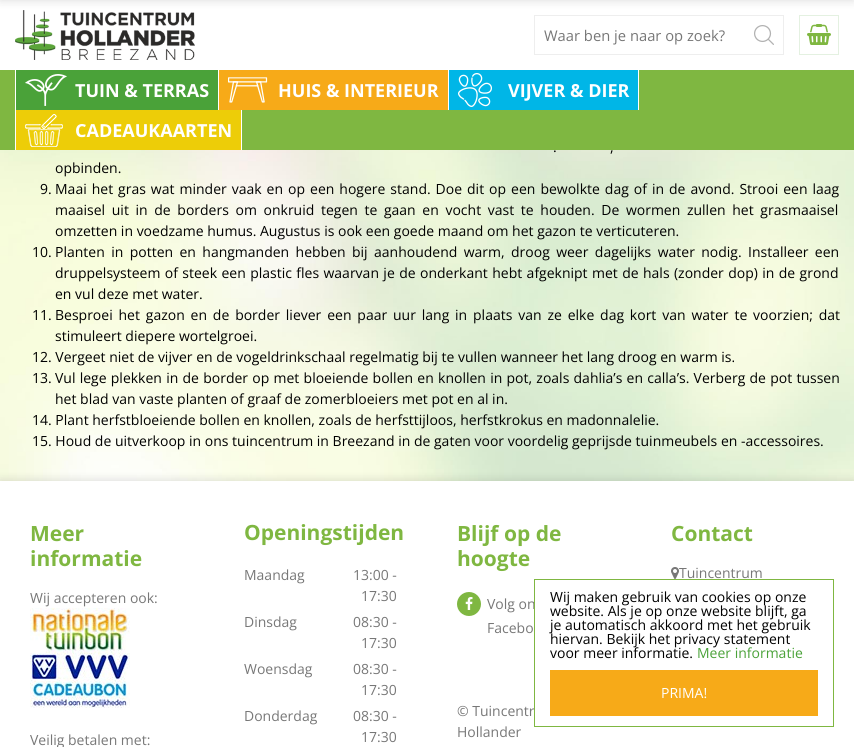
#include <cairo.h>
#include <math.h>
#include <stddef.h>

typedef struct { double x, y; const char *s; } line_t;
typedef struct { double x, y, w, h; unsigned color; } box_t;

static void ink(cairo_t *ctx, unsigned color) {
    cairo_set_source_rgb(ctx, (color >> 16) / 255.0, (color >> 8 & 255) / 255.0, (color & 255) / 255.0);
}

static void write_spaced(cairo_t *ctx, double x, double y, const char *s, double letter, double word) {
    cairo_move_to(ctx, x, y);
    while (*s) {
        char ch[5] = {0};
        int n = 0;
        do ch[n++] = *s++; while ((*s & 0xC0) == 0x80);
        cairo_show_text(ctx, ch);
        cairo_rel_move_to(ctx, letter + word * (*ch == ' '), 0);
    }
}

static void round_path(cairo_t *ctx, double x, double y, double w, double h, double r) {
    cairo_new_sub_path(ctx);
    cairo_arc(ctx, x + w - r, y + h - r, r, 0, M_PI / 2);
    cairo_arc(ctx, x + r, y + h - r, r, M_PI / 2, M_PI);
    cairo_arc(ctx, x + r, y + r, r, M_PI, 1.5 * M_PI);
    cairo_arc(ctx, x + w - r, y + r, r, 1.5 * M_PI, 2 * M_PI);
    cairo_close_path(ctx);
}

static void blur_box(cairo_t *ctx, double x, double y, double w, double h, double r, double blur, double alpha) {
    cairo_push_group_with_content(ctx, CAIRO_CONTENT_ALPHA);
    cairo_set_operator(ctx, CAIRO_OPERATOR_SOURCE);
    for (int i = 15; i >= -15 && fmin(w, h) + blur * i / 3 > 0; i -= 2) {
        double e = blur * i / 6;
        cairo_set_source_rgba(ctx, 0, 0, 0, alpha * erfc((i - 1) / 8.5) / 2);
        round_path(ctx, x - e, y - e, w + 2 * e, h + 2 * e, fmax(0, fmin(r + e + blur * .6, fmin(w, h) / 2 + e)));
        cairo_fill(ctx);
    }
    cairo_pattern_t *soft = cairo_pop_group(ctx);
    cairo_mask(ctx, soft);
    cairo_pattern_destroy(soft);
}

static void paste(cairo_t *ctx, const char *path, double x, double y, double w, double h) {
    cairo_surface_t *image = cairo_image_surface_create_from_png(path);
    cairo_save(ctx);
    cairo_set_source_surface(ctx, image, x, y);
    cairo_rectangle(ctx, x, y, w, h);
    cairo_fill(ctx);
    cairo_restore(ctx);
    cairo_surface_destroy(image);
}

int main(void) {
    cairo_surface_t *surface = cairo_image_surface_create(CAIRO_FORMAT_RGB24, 854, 747);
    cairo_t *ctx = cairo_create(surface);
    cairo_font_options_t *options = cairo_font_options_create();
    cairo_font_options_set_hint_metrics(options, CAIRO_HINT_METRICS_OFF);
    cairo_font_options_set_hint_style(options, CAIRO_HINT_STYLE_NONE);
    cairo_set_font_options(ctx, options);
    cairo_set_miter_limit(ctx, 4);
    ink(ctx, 0xFFFFFF);
    cairo_paint(ctx);
    paste(ctx, "media/1.png", 0, 150, 854, 331);
    paste(ctx, "media/2.png", 15, 10, 180, 50);
    ink(ctx, 0x000000);
    blur_box(ctx, 0, -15, 854, 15, 0, 5, 0.15);
    cairo_rectangle(ctx, 534.5, 15.5, 249, 39);
    ink(ctx, 0xEEEEEE);
    cairo_set_line_width(ctx, 1);
    cairo_stroke(ctx);
    cairo_select_font_face(ctx, "Open Sans", CAIRO_FONT_SLANT_NORMAL, CAIRO_FONT_WEIGHT_NORMAL);
    cairo_set_font_size(ctx, 14.75);
    ink(ctx, 0x777777);
    cairo_move_to(ctx, 544, 41);
    cairo_show_text(ctx, "Waar ben je naar op zoek?");
    paste(ctx, "media/3.png", 754, 25, 20, 20);
    cairo_rectangle(ctx, 799.5, 15.5, 39, 39);
    ink(ctx, 0xE4F1E1);
    cairo_stroke(ctx);
    paste(ctx, "media/4.png", 807, 24, 24, 21);
    {
        static const box_t items[] = {
            {0, 70, 854, 80, 0x7FB741},
            {15, 70, 1, 80, 0xFFFFFF},
            {218, 70, 1, 40, 0xFFFFFF},
            {16, 70, 202, 40, 0x4AA239},
        };
        for (size_t i = 0; i < sizeof items / sizeof *items; i++) {
            ink(ctx, items[i].color);
            cairo_rectangle(ctx, items[i].x, items[i].y, items[i].w, items[i].h);
            cairo_fill(ctx);
        }
    }
    paste(ctx, "media/5.png", 25, 74, 42, 32);
    cairo_select_font_face(ctx, "Open Sans", CAIRO_FONT_SLANT_NORMAL, CAIRO_FONT_WEIGHT_BOLD);
    cairo_set_font_size(ctx, 18);
    ink(ctx, 0xFFFFFF);
    cairo_move_to(ctx, 75, 97);
    cairo_show_text(ctx, "TUIN & TERRAS");
    cairo_rectangle(ctx, 448, 70, 1, 40);
    cairo_fill(ctx);
    ink(ctx, 0xF7AA18);
    cairo_rectangle(ctx, 219, 70, 229, 40);
    cairo_fill(ctx);
    paste(ctx, "media/6.png", 228, 77, 40, 26);
    ink(ctx, 0xFFFFFF);
    cairo_move_to(ctx, 278, 97);
    cairo_show_text(ctx, "HUIS & INTERIEUR");
    cairo_rectangle(ctx, 638, 70, 1, 40);
    cairo_fill(ctx);
    ink(ctx, 0x00B6E7);
    cairo_rectangle(ctx, 449, 70, 189, 40);
    cairo_fill(ctx);
    paste(ctx, "media/7.png", 458, 73, 34, 34);
    ink(ctx, 0xFFFFFF);
    cairo_move_to(ctx, 508, 97);
    cairo_show_text(ctx, "VIJVER & DIER");
    cairo_rectangle(ctx, 241, 110, 1, 40);
    cairo_fill(ctx);
    ink(ctx, 0xEDCD08);
    cairo_rectangle(ctx, 16, 110, 225, 40);
    cairo_fill(ctx);
    paste(ctx, "media/8.png", 25, 114, 38, 33);
    ink(ctx, 0xFFFFFF);
    cairo_move_to(ctx, 75, 137);
    cairo_show_text(ctx, "CADEAUKAARTEN");
    cairo_select_font_face(ctx, "Open Sans", CAIRO_FONT_SLANT_NORMAL, CAIRO_FONT_WEIGHT_NORMAL);
    cairo_set_font_size(ctx, 14);
    ink(ctx, 0x000000);
    write_spaced(ctx, 553, 152, ".", 0, 1);
    write_spaced(ctx, 610, 152, ",", 0, 1);
    cairo_move_to(ctx, 55, 173);
    cairo_show_text(ctx, "opbinden.");
    cairo_move_to(ctx, 40, 194);
    cairo_show_text(ctx, "9.");
    write_spaced(ctx, 55, 194, "Maai het gras wat minder vaak en op een hogere stand. Doe dit op een bewolkte dag of in de avond. Strooi een laag", 0, 1.35);
    write_spaced(ctx, 55, 215, "maaisel uit in de borders om onkruid tegen te gaan en vocht vast te houden. De wormen zullen het grasmaaisel", 0, 3);
    cairo_move_to(ctx, 55, 236);
    cairo_show_text(ctx, "omzetten in voedzame humus. Augustus is ook een goede maand om het gazon te verticuteren.");
    cairo_move_to(ctx, 32, 257);
    cairo_show_text(ctx, "10.");
    write_spaced(ctx, 55, 257, "Planten in potten en hangmanden hebben bij aanhoudend warm, droog weer dagelijks water nodig. Installeer een", 0, 2.75);
    write_spaced(ctx, 55, 278, "druppelsysteem of steek een plastic fles waarvan je de onderkant hebt afgeknipt met de hals (zonder dop) in de grond", 0, 0.75);
    cairo_move_to(ctx, 55, 299);
    cairo_show_text(ctx, "en vul deze met water.");
    cairo_move_to(ctx, 32, 320);
    cairo_show_text(ctx, "11.");
    write_spaced(ctx, 55, 320, "Besproei het gazon en de border liever een paar uur lang in plaats van ze elke dag kort van water te voorzien; dat", 0, 2.2);
    {
        static const line_t items[] = {
            {55, 341, "stimuleert diepere wortelgroei."},
            {32, 362, "12. Vergeet niet de vijver en de vogeldrinkschaal regelmatig bij te vullen wanneer het lang droog en warm is."},
            {32, 383, "13."},
        };
        for (size_t i = 0; i < sizeof items / sizeof *items; i++) {
            cairo_move_to(ctx, items[i].x, items[i].y);
            cairo_show_text(ctx, items[i].s);
        }
    }
    write_spaced(ctx, 55, 383, "Vul lege plekken in de border op met bloeiende bollen en knollen in pot, zoals dahlia’s en calla’s. Verberg de pot tussen", 0, 0.6);
    {
        static const line_t items[] = {
            {55, 404, "het blad van vaste planten of graaf de zomerbloeiers met pot en al in."},
            {32, 425, "14. Plant herfstbloeiende bollen en knollen, zoals de herfsttijloos, herfstkrokus en madonnalelie."},
            {32, 446, "15. Houd de uitverkoop in ons tuincentrum in Breezand in de gaten voor voordelig geprijsde tuinmeubels en -accessoires."},
        };
        for (size_t i = 0; i < sizeof items / sizeof *items; i++) {
            cairo_move_to(ctx, items[i].x, items[i].y);
            cairo_show_text(ctx, items[i].s);
        }
    }
    ink(ctx, 0x000000);
    blur_box(ctx, 0, 481, 854, 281, 0, 5, 0.15);
    ink(ctx, 0xFFFFFF);
    cairo_rectangle(ctx, 0, 481, 854, 266);
    cairo_fill(ctx);
    cairo_select_font_face(ctx, "Open Sans", CAIRO_FONT_SLANT_NORMAL, CAIRO_FONT_WEIGHT_BOLD);
    cairo_set_font_size(ctx, 21);
    ink(ctx, 0x7FB741);
    cairo_move_to(ctx, 30, 541);
    cairo_show_text(ctx, "Meer");
    cairo_move_to(ctx, 30, 566);
    cairo_show_text(ctx, "informatie");
    cairo_select_font_face(ctx, "Open Sans", CAIRO_FONT_SLANT_NORMAL, CAIRO_FONT_WEIGHT_NORMAL);
    cairo_set_font_size(ctx, 14);
    ink(ctx, 0x777777);
    cairo_move_to(ctx, 30, 603);
    cairo_show_text(ctx, "Wij accepteren ook:");
    paste(ctx, "media/9.png", 30, 608, 100, 45);
    paste(ctx, "media/10.png", 30, 653, 100, 55);
    cairo_move_to(ctx, 30, 745);
    cairo_show_text(ctx, "Veilig betalen met:");
    cairo_select_font_face(ctx, "Open Sans", CAIRO_FONT_SLANT_NORMAL, CAIRO_FONT_WEIGHT_BOLD);
    cairo_set_font_size(ctx, 21);
    ink(ctx, 0x7FB741);
    cairo_move_to(ctx, 244, 540);
    cairo_show_text(ctx, "Openingstijden");
    cairo_select_font_face(ctx, "Open Sans", CAIRO_FONT_SLANT_NORMAL, CAIRO_FONT_WEIGHT_NORMAL);
    cairo_set_font_size(ctx, 14);
    ink(ctx, 0x777777);
    {
        static const line_t items[] = {
            {244, 580, "Maandag"},
            {353, 580, "13:00 -"},
            {361, 601, "17:30"},
            {244, 627, "Dinsdag"},
            {353, 627, "08:30 -"},
            {361, 648, "17:30"},
            {244, 674, "Woensdag"},
            {353, 674, "08:30 -"},
            {361, 695, "17:30"},
            {244, 721, "Donderdag"},
            {353, 721, "08:30 -"},
            {361, 742, "17:30"},
        };
        for (size_t i = 0; i < sizeof items / sizeof *items; i++) {
            cairo_move_to(ctx, items[i].x, items[i].y);
            cairo_show_text(ctx, items[i].s);
        }
    }
    cairo_select_font_face(ctx, "Open Sans", CAIRO_FONT_SLANT_NORMAL, CAIRO_FONT_WEIGHT_BOLD);
    cairo_set_font_size(ctx, 21);
    ink(ctx, 0x7FB741);
    cairo_move_to(ctx, 457, 541);
    cairo_show_text(ctx, "Blijf op de");
    cairo_move_to(ctx, 457, 566);
    cairo_show_text(ctx, "hoogte");
    cairo_new_path(ctx);
    cairo_arc(ctx, 469, 604, 12, 0, 2 * M_PI);
    cairo_fill(ctx);
    paste(ctx, "media/11.png", 465, 597, 8, 13);
    cairo_select_font_face(ctx, "Open Sans", CAIRO_FONT_SLANT_NORMAL, CAIRO_FONT_WEIGHT_NORMAL);
    cairo_set_font_size(ctx, 14);
    ink(ctx, 0x777777);
    cairo_move_to(ctx, 487, 609);
    cairo_show_text(ctx, "Volg on");
    cairo_move_to(ctx, 487, 633);
    cairo_show_text(ctx, "Facebo");
    cairo_select_font_face(ctx, "Open Sans", CAIRO_FONT_SLANT_NORMAL, CAIRO_FONT_WEIGHT_BOLD);
    cairo_set_font_size(ctx, 21);
    ink(ctx, 0x7FB741);
    cairo_move_to(ctx, 671, 541);
    cairo_show_text(ctx, "Contact");
    paste(ctx, "media/12.png", 671, 567, 8, 12);
    cairo_select_font_face(ctx, "Open Sans", CAIRO_FONT_SLANT_NORMAL, CAIRO_FONT_WEIGHT_NORMAL);
    cairo_set_font_size(ctx, 14);
    ink(ctx, 0x777777);
    {
        static const line_t items[] = {
            {679, 578, "Tuincentrum"},
            {457, 716, "© Tuincentr"},
            {457, 737, "Hollander"},
        };
        for (size_t i = 0; i < sizeof items / sizeof *items; i++) {
            cairo_move_to(ctx, items[i].x, items[i].y);
            cairo_show_text(ctx, items[i].s);
        }
    }
    cairo_rectangle(ctx, 534.5, 579.5, 299, 147);
    ink(ctx, 0x7FB741);
    cairo_stroke(ctx);
    ink(ctx, 0x000000);
    {
        static const line_t items[] = {
            {550, 602, "Wij maken gebruik van cookies op onze"},
            {550, 616, "website. Als je op onze website blijft, ga"},
            {550, 630, "je automatisch akkoord met het gebruik"},
            {550, 644, "hiervan. Bekijk het privacy statement"},
            {550, 658, "voor meer informatie."},
        };
        for (size_t i = 0; i < sizeof items / sizeof *items; i++) {
            cairo_move_to(ctx, items[i].x, items[i].y);
            cairo_show_text(ctx, items[i].s);
        }
    }
    ink(ctx, 0x4AA239);
    cairo_move_to(ctx, 697, 658);
    cairo_show_text(ctx, "Meer informatie");
    ink(ctx, 0xF7AA18);
    cairo_rectangle(ctx, 550, 670, 268, 46);
    cairo_fill(ctx);
    ink(ctx, 0xFFFFFF);
    cairo_move_to(ctx, 661, 698);
    cairo_show_text(ctx, "PRIMA!");
    cairo_surface_write_to_png(surface, "image.png");
    cairo_font_options_destroy(options);
    cairo_destroy(ctx);
    cairo_surface_destroy(surface);
    return 0;
}
